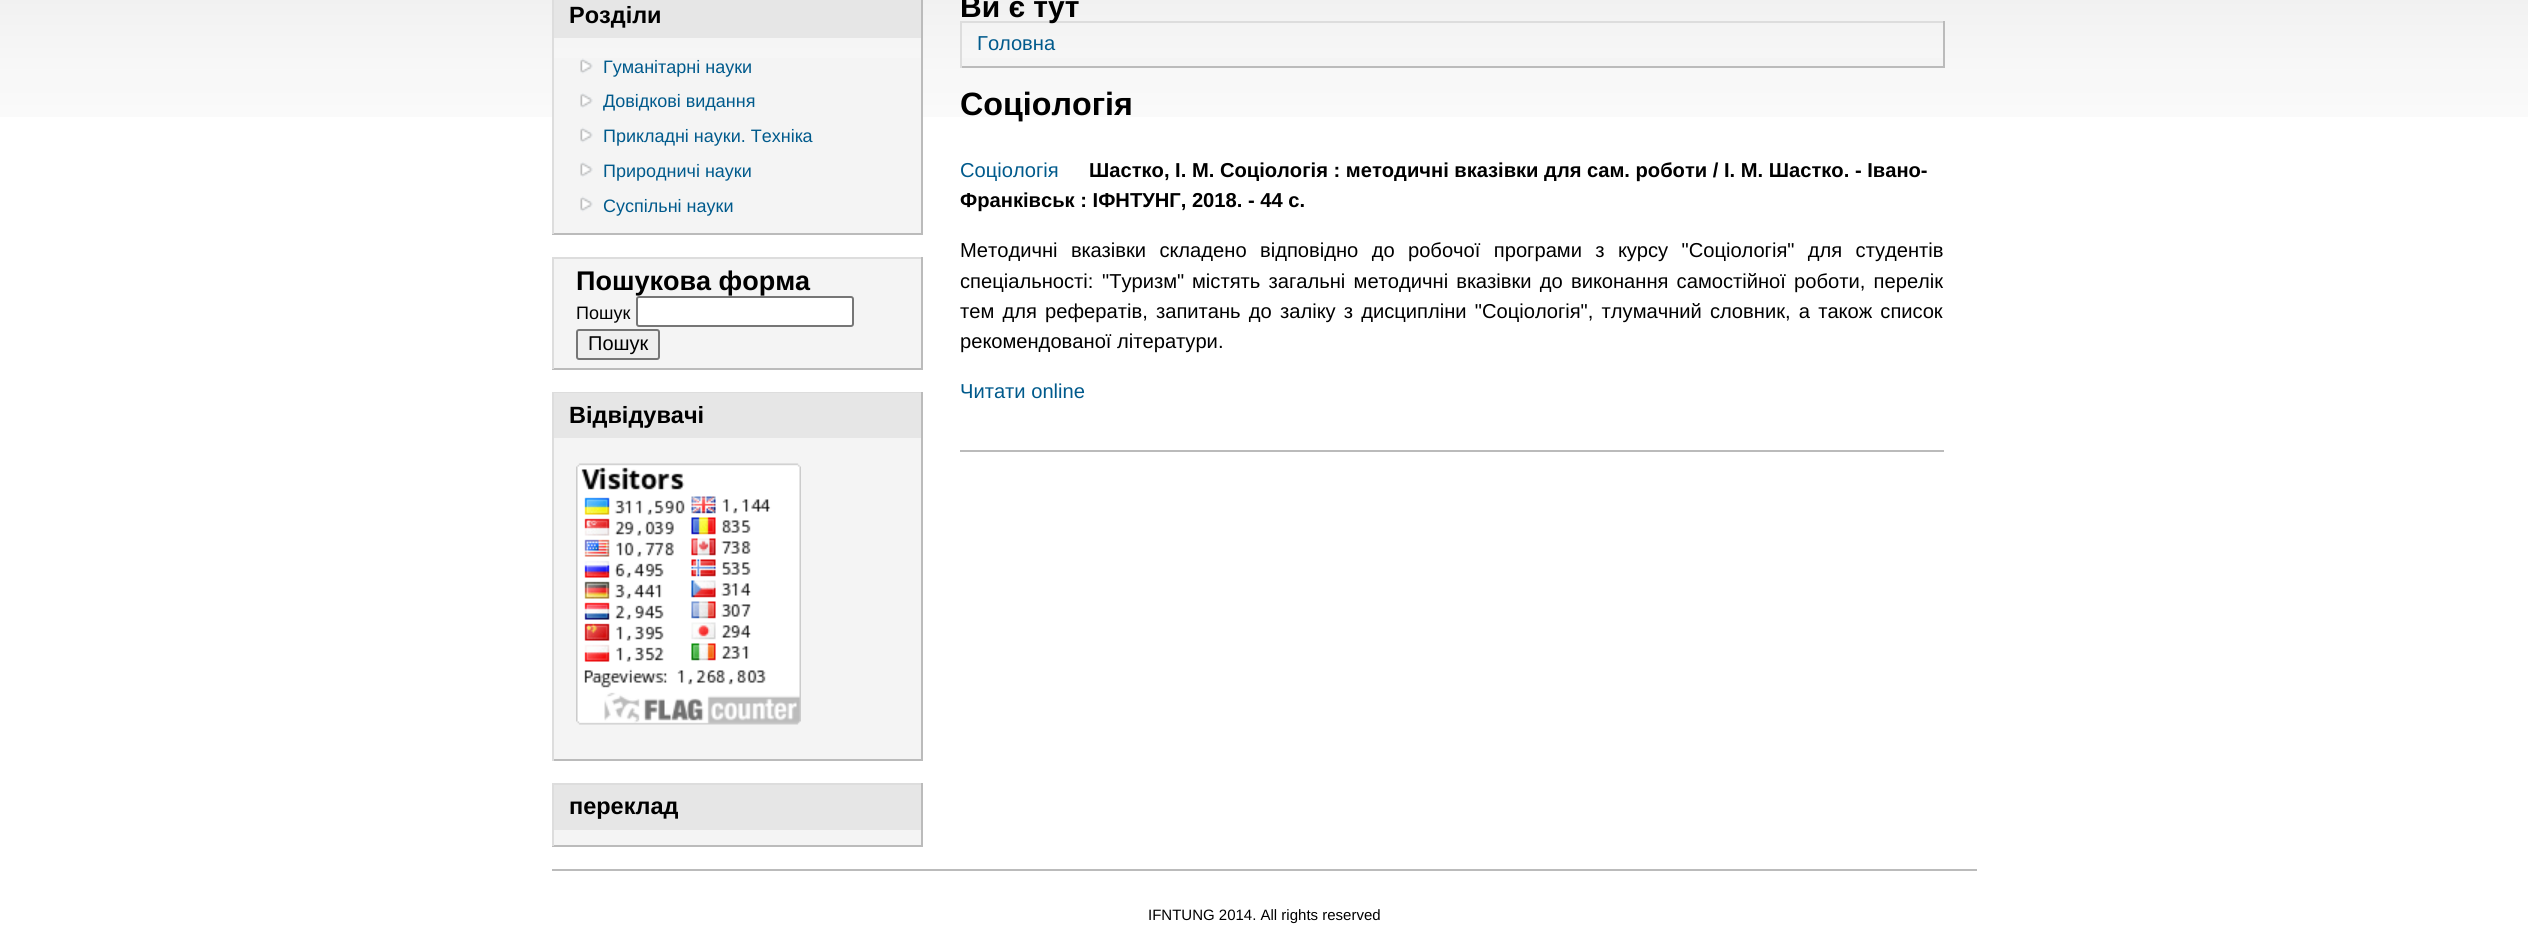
#include <cairo.h>
#include <math.h>
#include <stddef.h>

typedef struct { double x, y, w, h; unsigned color; } box_t;

static void ink(cairo_t *ctx, unsigned color) {
    cairo_set_source_rgb(ctx, (color >> 16) / 255.0, (color >> 8 & 255) / 255.0, (color & 255) / 255.0);
}

static void write_spaced(cairo_t *ctx, double x, double y, const char *s, double letter, double word) {
    cairo_move_to(ctx, x, y);
    while (*s) {
        char ch[5] = {0};
        int n = 0;
        do ch[n++] = *s++; while ((*s & 0xC0) == 0x80);
        cairo_show_text(ctx, ch);
        cairo_rel_move_to(ctx, letter + word * (*ch == ' '), 0);
    }
}

static void round_path(cairo_t *ctx, double x, double y, double w, double h, double r) {
    cairo_new_sub_path(ctx);
    cairo_arc(ctx, x + w - r, y + h - r, r, 0, M_PI / 2);
    cairo_arc(ctx, x + r, y + h - r, r, M_PI / 2, M_PI);
    cairo_arc(ctx, x + r, y + r, r, M_PI, 1.5 * M_PI);
    cairo_arc(ctx, x + w - r, y + r, r, 1.5 * M_PI, 2 * M_PI);
    cairo_close_path(ctx);
}

static void paste(cairo_t *ctx, const char *path, double x, double y, double w, double h) {
    cairo_surface_t *image = cairo_image_surface_create_from_png(path);
    cairo_save(ctx);
    cairo_set_source_surface(ctx, image, x, y);
    cairo_rectangle(ctx, x, y, w, h);
    cairo_fill(ctx);
    cairo_restore(ctx);
    cairo_surface_destroy(image);
}

int main(void) {
    cairo_surface_t *surface = cairo_image_surface_create(CAIRO_FORMAT_RGB24, 2528, 930);
    cairo_t *ctx = cairo_create(surface);
    cairo_font_options_t *options = cairo_font_options_create();
    cairo_font_options_set_hint_metrics(options, CAIRO_HINT_METRICS_OFF);
    cairo_font_options_set_hint_style(options, CAIRO_HINT_STYLE_NONE);
    cairo_set_font_options(ctx, options);
    cairo_set_miter_limit(ctx, 4);
    ink(ctx, 0xFFFFFF);
    cairo_paint(ctx);
    paste(ctx, "media/1.png", 0, 0, 2528, 117);
    {
        static const box_t items[] = {
            {554, 58, 367, 175, 0xF4F4F4},
            {921, 0, 2, 234, 0xBBBBBB},
            {552, 233, 371, 2, 0xBBBBBB},
            {552, 0, 2, 234, 0xDDDDDD},
            {554, 0, 367, 38, 0xE6E6E6},
        };
        for (size_t i = 0; i < sizeof items / sizeof *items; i++) {
            ink(ctx, items[i].color);
            cairo_rectangle(ctx, items[i].x, items[i].y, items[i].w, items[i].h);
            cairo_fill(ctx);
        }
    }
    cairo_select_font_face(ctx, "Liberation Sans", CAIRO_FONT_SLANT_NORMAL, CAIRO_FONT_WEIGHT_BOLD);
    cairo_set_font_size(ctx, 23.5);
    ink(ctx, 0x000000);
    cairo_move_to(ctx, 569, 23);
    cairo_show_text(ctx, "Розділи");
    paste(ctx, "media/2.png", 580, 58, 13, 16);
    cairo_select_font_face(ctx, "Liberation Sans", CAIRO_FONT_SLANT_NORMAL, CAIRO_FONT_WEIGHT_NORMAL);
    cairo_set_font_size(ctx, 18);
    ink(ctx, 0x005A8C);
    cairo_move_to(ctx, 603, 73);
    cairo_show_text(ctx, "Гуманітарні науки");
    paste(ctx, "media/3.png", 580, 93, 13, 15);
    cairo_move_to(ctx, 603, 107);
    cairo_show_text(ctx, "Довідкові видання");
    paste(ctx, "media/2.png", 580, 127, 13, 16);
    cairo_move_to(ctx, 603, 142);
    cairo_show_text(ctx, "Прикладні науки. Техніка");
    paste(ctx, "media/3.png", 580, 162, 13, 15);
    cairo_move_to(ctx, 603, 177);
    cairo_show_text(ctx, "Природничі науки");
    paste(ctx, "media/2.png", 580, 196, 13, 16);
    cairo_move_to(ctx, 603, 212);
    cairo_show_text(ctx, "Суспільні науки");
    {
        static const box_t items[] = {
            {554, 259, 367, 109, 0xF4F4F4},
            {552, 257, 371, 2, 0xDDDDDD},
            {921, 257, 2, 112, 0xBBBBBB},
            {552, 368, 371, 2, 0xBBBBBB},
            {552, 257, 2, 112, 0xDDDDDD},
        };
        for (size_t i = 0; i < sizeof items / sizeof *items; i++) {
            ink(ctx, items[i].color);
            cairo_rectangle(ctx, items[i].x, items[i].y, items[i].w, items[i].h);
            cairo_fill(ctx);
        }
    }
    cairo_select_font_face(ctx, "Liberation Sans", CAIRO_FONT_SLANT_NORMAL, CAIRO_FONT_WEIGHT_BOLD);
    cairo_set_font_size(ctx, 27);
    ink(ctx, 0x000000);
    cairo_move_to(ctx, 576, 290);
    cairo_show_text(ctx, "Пошукова форма");
    cairo_select_font_face(ctx, "Liberation Sans", CAIRO_FONT_SLANT_NORMAL, CAIRO_FONT_WEIGHT_NORMAL);
    cairo_set_font_size(ctx, 18);
    cairo_move_to(ctx, 576, 319);
    cairo_show_text(ctx, "Пошук");
    ink(ctx, 0xFFFFFF);
    round_path(ctx, 637, 297, 216, 29, 2);
    cairo_fill_preserve(ctx);
    ink(ctx, 0x767676);
    cairo_stroke(ctx);
    ink(ctx, 0xEFEFEF);
    round_path(ctx, 577, 330, 82, 29, 2);
    cairo_fill_preserve(ctx);
    ink(ctx, 0x767676);
    cairo_stroke(ctx);
    cairo_set_font_size(ctx, 20);
    ink(ctx, 0x000000);
    cairo_move_to(ctx, 588, 350);
    cairo_show_text(ctx, "Пошук");
    {
        static const box_t items[] = {
            {554, 438, 367, 321, 0xF4F4F4},
            {552, 392, 371, 1, 0xDDDDDD},
            {921, 392, 2, 369, 0xBBBBBB},
            {552, 759, 371, 2, 0xBBBBBB},
            {552, 392, 2, 369, 0xDDDDDD},
            {554, 393, 367, 45, 0xE6E6E6},
        };
        for (size_t i = 0; i < sizeof items / sizeof *items; i++) {
            ink(ctx, items[i].color);
            cairo_rectangle(ctx, items[i].x, items[i].y, items[i].w, items[i].h);
            cairo_fill(ctx);
        }
    }
    cairo_select_font_face(ctx, "Liberation Sans", CAIRO_FONT_SLANT_NORMAL, CAIRO_FONT_WEIGHT_BOLD);
    cairo_set_font_size(ctx, 23.5);
    ink(ctx, 0x000000);
    cairo_move_to(ctx, 569, 423);
    cairo_show_text(ctx, "Відвідувачі");
    paste(ctx, "media/4.png", 576, 463, 225, 262);
    {
        static const box_t items[] = {
            {554, 830, 367, 15, 0xF4F4F4},
            {552, 783, 371, 2, 0xDDDDDD},
            {921, 783, 2, 63, 0xBBBBBB},
            {552, 845, 371, 2, 0xBBBBBB},
            {552, 783, 2, 63, 0xDDDDDD},
            {554, 785, 367, 45, 0xE6E6E6},
        };
        for (size_t i = 0; i < sizeof items / sizeof *items; i++) {
            ink(ctx, items[i].color);
            cairo_rectangle(ctx, items[i].x, items[i].y, items[i].w, items[i].h);
            cairo_fill(ctx);
        }
    }
    ink(ctx, 0x000000);
    cairo_move_to(ctx, 569, 814);
    cairo_show_text(ctx, "переклад");
    ink(ctx, 0xDDDDDD);
    cairo_rectangle(ctx, 960, 21, 984, 2);
    cairo_fill(ctx);
    cairo_set_font_size(ctx, 30);
    ink(ctx, 0x000000);
    cairo_move_to(ctx, 960, 17);
    cairo_show_text(ctx, "Ви є тут");
    {
        static const box_t items[] = {
            {962, 58, 981, 8, 0xF4F4F4},
            {1943, 21, 2, 47, 0xBBBBBB},
            {960, 66, 984, 2, 0xBBBBBB},
            {960, 21, 2, 47, 0xDDDDDD},
        };
        for (size_t i = 0; i < sizeof items / sizeof *items; i++) {
            ink(ctx, items[i].color);
            cairo_rectangle(ctx, items[i].x, items[i].y, items[i].w, items[i].h);
            cairo_fill(ctx);
        }
    }
    cairo_select_font_face(ctx, "Liberation Sans", CAIRO_FONT_SLANT_NORMAL, CAIRO_FONT_WEIGHT_NORMAL);
    cairo_set_font_size(ctx, 20.15);
    ink(ctx, 0x005A8C);
    cairo_move_to(ctx, 977, 50);
    cairo_show_text(ctx, "Головна");
    cairo_select_font_face(ctx, "Liberation Sans", CAIRO_FONT_SLANT_NORMAL, CAIRO_FONT_WEIGHT_BOLD);
    cairo_set_font_size(ctx, 32.25);
    ink(ctx, 0x000000);
    cairo_move_to(ctx, 960, 115);
    cairo_show_text(ctx, "Соціологія");
    ink(ctx, 0xBBBBBB);
    cairo_rectangle(ctx, 960, 450, 984, 2);
    cairo_fill(ctx);
    cairo_set_font_size(ctx, 20.15);
    ink(ctx, 0x000000);
    cairo_move_to(ctx, 1089, 177);
    cairo_show_text(ctx, "Шастко, І. М. Соціологія : методичні вказівки для сам. роботи / І. М. Шастко. - Івано-");
    cairo_move_to(ctx, 960, 207);
    cairo_show_text(ctx, "Франківськ : ІФНТУНГ, 2018. - 44 с.");
    cairo_select_font_face(ctx, "Liberation Sans", CAIRO_FONT_SLANT_NORMAL, CAIRO_FONT_WEIGHT_NORMAL);
    write_spaced(ctx, 960, 257, "Методичні вказівки складено відповідно до робочої програми з курсу \"Соціологія\" для студентів", 0, 7.75);
    cairo_move_to(ctx, 960, 288);
    cairo_show_text(ctx, "спеціальності:");
    cairo_move_to(ctx, 1102, 288);
    cairo_show_text(ctx, "\"Туризм\"");
    write_spaced(ctx, 1192, 288, "містять загальні методичні вказівки до виконання самостійної роботи, перелік", 0, 2.6);
    write_spaced(ctx, 960, 318, "тем для рефератів, запитань до заліку з дисципліни \"Соціологія\", тлумачний словник, а також список", 0, 2.6);
    cairo_move_to(ctx, 960, 348);
    cairo_show_text(ctx, "рекомендованої літератури.");
    ink(ctx, 0x005A8C);
    cairo_move_to(ctx, 960, 398);
    cairo_show_text(ctx, "Читати online");
    cairo_move_to(ctx, 960, 177);
    cairo_show_text(ctx, "Соціологія");
    ink(ctx, 0xBBBBBB);
    cairo_rectangle(ctx, 552, 869, 1425, 2);
    cairo_fill(ctx);
    cairo_set_font_size(ctx, 15);
    ink(ctx, 0x000000);
    cairo_move_to(ctx, 1148, 920);
    cairo_show_text(ctx, "IFNTUNG 2014. All rights reserved");
    cairo_surface_write_to_png(surface, "image.png");
    cairo_font_options_destroy(options);
    cairo_destroy(ctx);
    cairo_surface_destroy(surface);
    return 0;
}
